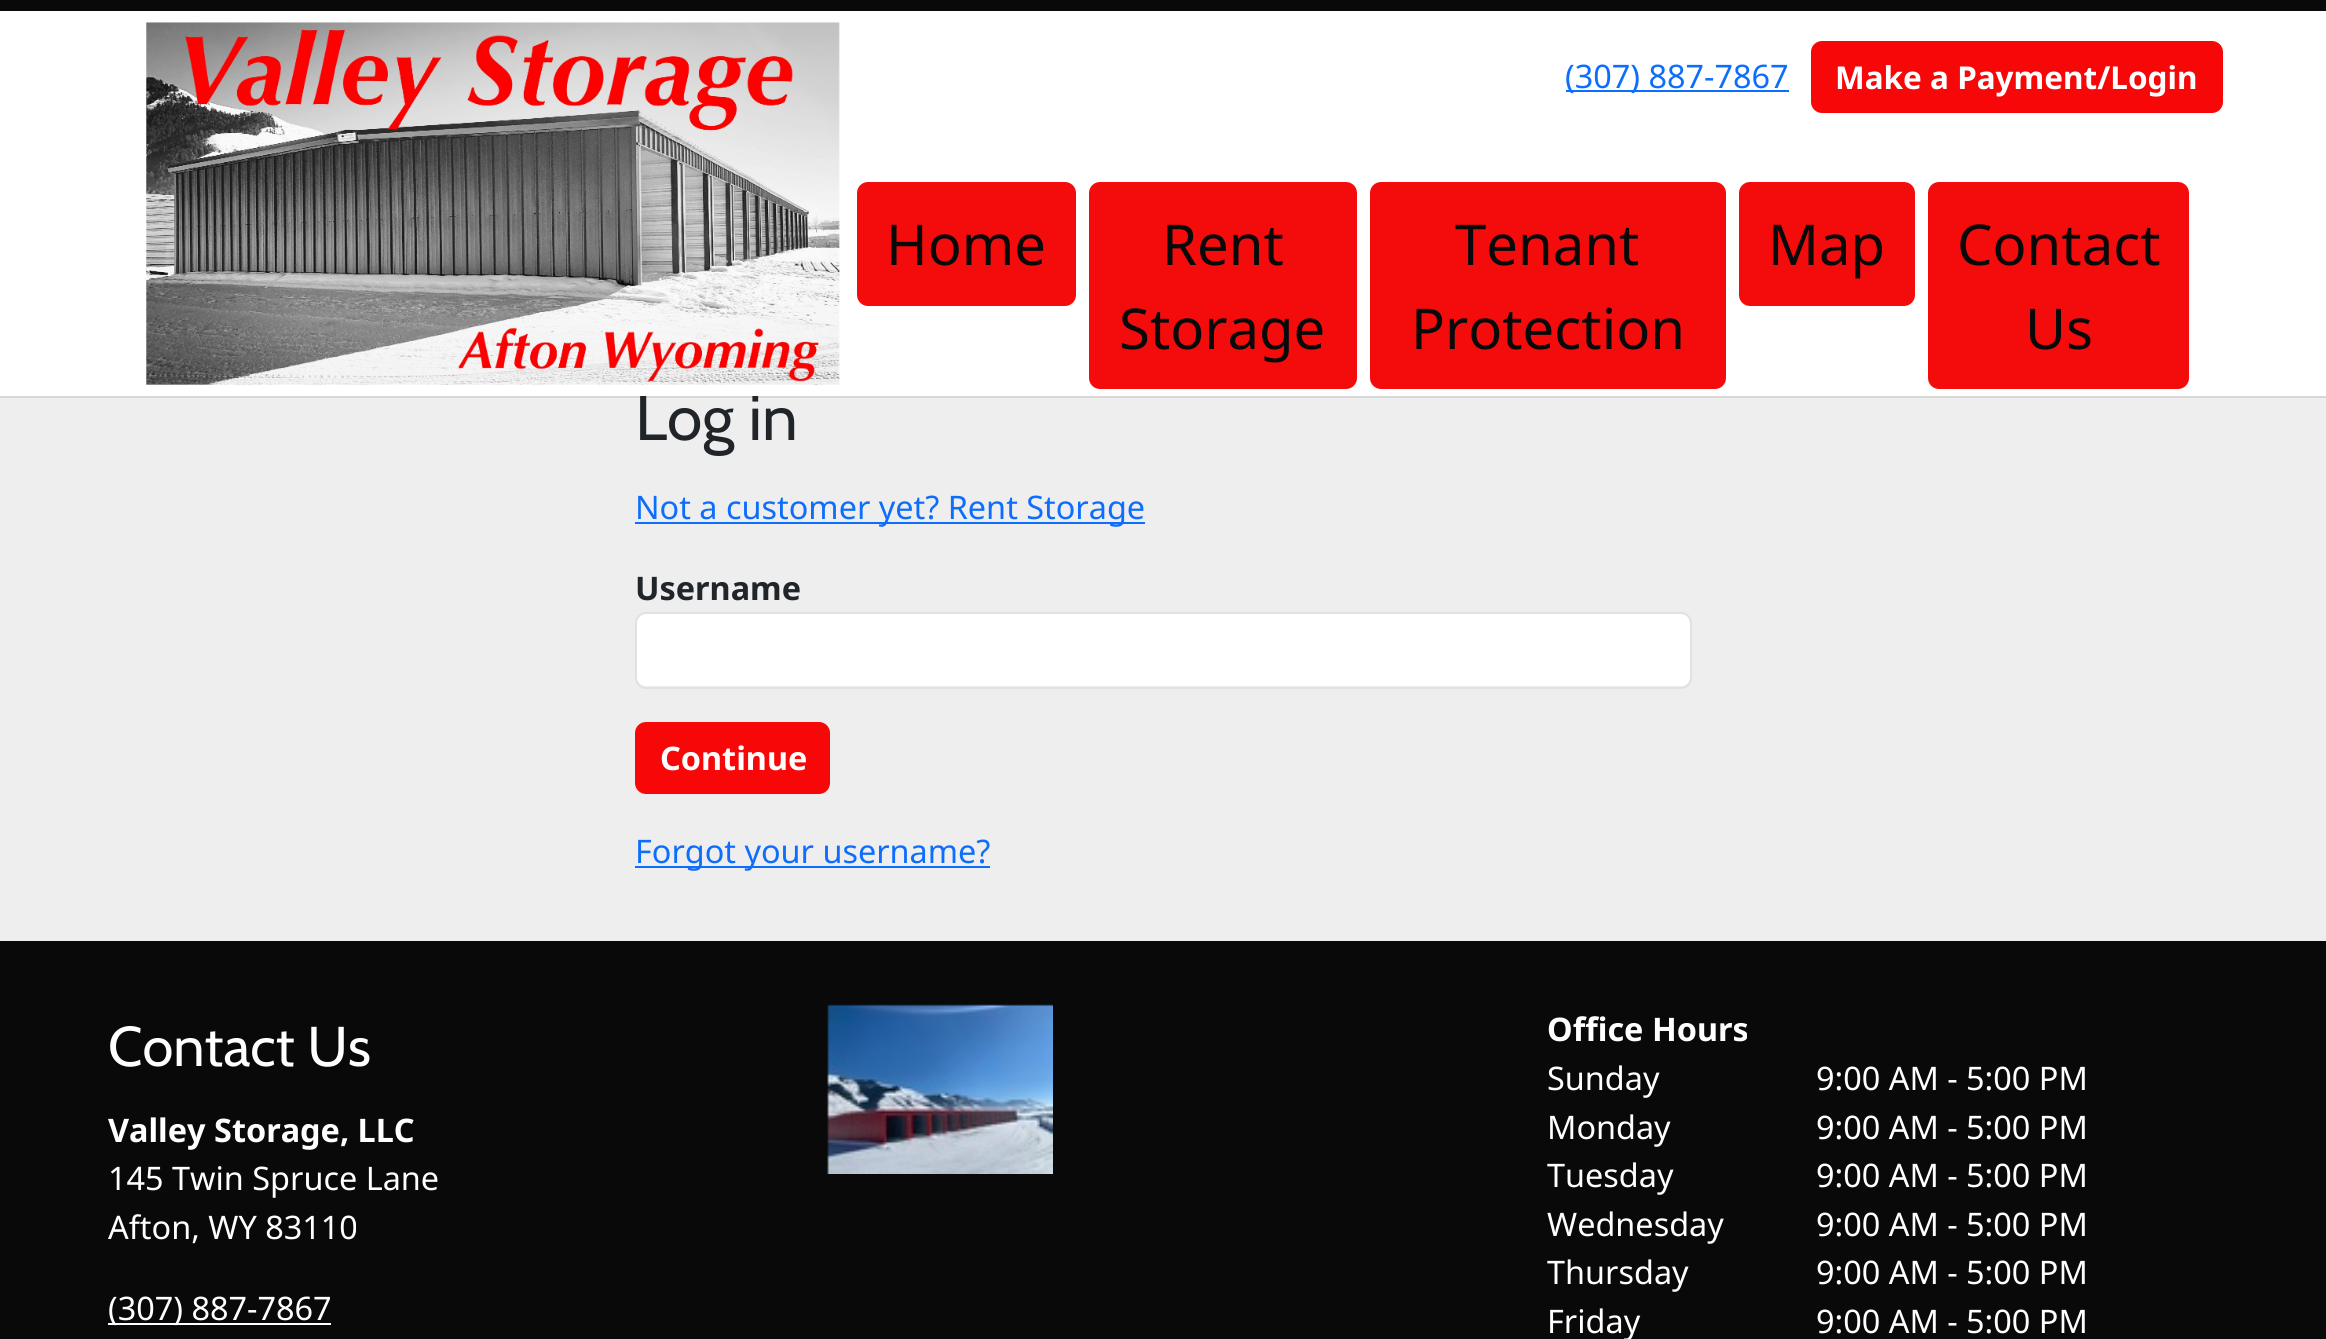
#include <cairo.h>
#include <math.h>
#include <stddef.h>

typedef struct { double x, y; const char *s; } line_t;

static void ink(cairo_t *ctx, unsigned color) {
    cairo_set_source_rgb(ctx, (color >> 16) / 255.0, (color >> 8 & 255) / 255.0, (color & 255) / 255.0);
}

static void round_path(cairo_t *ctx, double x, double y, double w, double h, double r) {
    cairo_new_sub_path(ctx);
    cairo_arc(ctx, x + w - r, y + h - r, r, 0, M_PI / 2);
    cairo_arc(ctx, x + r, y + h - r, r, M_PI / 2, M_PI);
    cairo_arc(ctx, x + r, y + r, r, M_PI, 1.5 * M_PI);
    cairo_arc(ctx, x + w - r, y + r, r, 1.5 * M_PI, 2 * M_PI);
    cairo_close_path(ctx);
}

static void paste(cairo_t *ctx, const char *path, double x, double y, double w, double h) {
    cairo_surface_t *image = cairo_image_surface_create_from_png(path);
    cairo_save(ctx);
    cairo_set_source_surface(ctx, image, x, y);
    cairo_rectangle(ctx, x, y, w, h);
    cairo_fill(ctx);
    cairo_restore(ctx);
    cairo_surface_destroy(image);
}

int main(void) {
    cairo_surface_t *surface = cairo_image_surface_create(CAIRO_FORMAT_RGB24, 2326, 1339);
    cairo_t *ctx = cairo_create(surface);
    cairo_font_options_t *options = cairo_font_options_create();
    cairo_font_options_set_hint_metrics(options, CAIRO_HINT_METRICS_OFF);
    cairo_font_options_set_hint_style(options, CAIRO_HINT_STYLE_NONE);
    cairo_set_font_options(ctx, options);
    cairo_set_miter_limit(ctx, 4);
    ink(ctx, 0xEEEEEE);
    cairo_paint(ctx);
    cairo_set_source_rgba(ctx, 0, 0, 0, 0.1);
    cairo_new_path(ctx);
    cairo_move_to(ctx, 0, 396);
    cairo_line_to(ctx, 0, 398);
    cairo_line_to(ctx, 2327, 398);
    cairo_line_to(ctx, 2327, 2);
    cairo_line_to(ctx, 2326, 2);
    cairo_line_to(ctx, 2326, 396);
    cairo_close_path(ctx);
    cairo_fill(ctx);
    cairo_select_font_face(ctx, "Cabin", CAIRO_FONT_SLANT_NORMAL, CAIRO_FONT_WEIGHT_NORMAL);
    cairo_set_font_size(ctx, 64);
    ink(ctx, 0x212529);
    cairo_move_to(ctx, 635, 440);
    cairo_show_text(ctx, "Log in");
    ink(ctx, 0xFFFFFF);
    cairo_rectangle(ctx, 0, 11, 2326, 385);
    cairo_fill(ctx);
    ink(ctx, 0x090909);
    cairo_rectangle(ctx, 0, 0, 2326, 11);
    cairo_fill(ctx);
    paste(ctx, "media/1.png", 146, 22, 694, 363);
    ink(ctx, 0x0D6EFD);
    cairo_rectangle(ctx, 1566, 90, 223, 2);
    cairo_fill(ctx);
    cairo_select_font_face(ctx, "Noto Sans", CAIRO_FONT_SLANT_NORMAL, CAIRO_FONT_WEIGHT_NORMAL);
    cairo_set_font_size(ctx, 32.4);
    cairo_move_to(ctx, 1565, 88);
    cairo_show_text(ctx, "(307) 887-7867");
    ink(ctx, 0xF70707);
    round_path(ctx, 1811, 41, 412, 72, 11);
    cairo_fill(ctx);
    cairo_select_font_face(ctx, "Noto Sans", CAIRO_FONT_SLANT_NORMAL, CAIRO_FONT_WEIGHT_BOLD);
    cairo_set_font_size(ctx, 31.5);
    ink(ctx, 0xFFFFFF);
    cairo_move_to(ctx, 1835, 89);
    cairo_show_text(ctx, "Make a Payment/Login");
    ink(ctx, 0xF40B0B);
    round_path(ctx, 857, 182, 219, 124, 11);
    cairo_fill(ctx);
    cairo_select_font_face(ctx, "Noto Sans", CAIRO_FONT_SLANT_NORMAL, CAIRO_FONT_WEIGHT_NORMAL);
    cairo_set_font_size(ctx, 56.25);
    ink(ctx, 0x090909);
    cairo_move_to(ctx, 886, 265);
    cairo_show_text(ctx, "Home");
    ink(ctx, 0xF40B0B);
    round_path(ctx, 1089, 182, 268, 207, 11);
    cairo_fill(ctx);
    ink(ctx, 0x090909);
    cairo_move_to(ctx, 1162, 265);
    cairo_show_text(ctx, "Rent");
    cairo_move_to(ctx, 1119, 349);
    cairo_show_text(ctx, "Storage");
    ink(ctx, 0xF40B0B);
    round_path(ctx, 1370, 182, 356, 207, 11);
    cairo_fill(ctx);
    ink(ctx, 0x090909);
    cairo_move_to(ctx, 1455, 265);
    cairo_show_text(ctx, "Tenant");
    cairo_move_to(ctx, 1411, 349);
    cairo_show_text(ctx, "Protection");
    ink(ctx, 0xF40B0B);
    round_path(ctx, 1739, 182, 176, 124, 11);
    cairo_fill(ctx);
    ink(ctx, 0x090909);
    cairo_move_to(ctx, 1768, 265);
    cairo_show_text(ctx, "Map");
    ink(ctx, 0xF40B0B);
    round_path(ctx, 1928, 182, 261, 207, 11);
    cairo_fill(ctx);
    ink(ctx, 0x090909);
    cairo_move_to(ctx, 1957, 265);
    cairo_show_text(ctx, "Contact");
    cairo_move_to(ctx, 2025, 349);
    cairo_show_text(ctx, "Us");
    ink(ctx, 0x0D6EFD);
    cairo_rectangle(ctx, 635, 522, 510, 2);
    cairo_fill(ctx);
    cairo_set_font_size(ctx, 32.4);
    cairo_move_to(ctx, 635, 519);
    cairo_show_text(ctx, "Not a customer yet? Rent Storage");
    cairo_select_font_face(ctx, "Noto Sans", CAIRO_FONT_SLANT_NORMAL, CAIRO_FONT_WEIGHT_BOLD);
    ink(ctx, 0x212529);
    cairo_move_to(ctx, 635, 600);
    cairo_show_text(ctx, "Username");
    ink(ctx, 0xFFFFFF);
    round_path(ctx, 637, 614, 1053, 72, 9);
    cairo_fill(ctx);
    round_path(ctx, 636, 613, 1055, 75, 10);
    ink(ctx, 0xDEE2E6);
    cairo_stroke(ctx);
    ink(ctx, 0xF70707);
    round_path(ctx, 635, 722, 195, 72, 11);
    cairo_fill(ctx);
    ink(ctx, 0xFFFFFF);
    cairo_move_to(ctx, 660, 770);
    cairo_show_text(ctx, "Continue");
    ink(ctx, 0x0D6EFD);
    cairo_rectangle(ctx, 635, 866, 355, 2);
    cairo_fill(ctx);
    cairo_select_font_face(ctx, "Noto Sans", CAIRO_FONT_SLANT_NORMAL, CAIRO_FONT_WEIGHT_NORMAL);
    cairo_move_to(ctx, 635, 863);
    cairo_show_text(ctx, "Forgot your username?");
    ink(ctx, 0x090909);
    cairo_rectangle(ctx, 0, 941, 2326, 398);
    cairo_fill(ctx);
    cairo_select_font_face(ctx, "Cabin", CAIRO_FONT_SLANT_NORMAL, CAIRO_FONT_WEIGHT_NORMAL);
    cairo_set_font_size(ctx, 56);
    ink(ctx, 0xFFFFFF);
    cairo_move_to(ctx, 108, 1066);
    cairo_show_text(ctx, "Contact Us");
    cairo_select_font_face(ctx, "Noto Sans", CAIRO_FONT_SLANT_NORMAL, CAIRO_FONT_WEIGHT_BOLD);
    cairo_set_font_size(ctx, 32.4);
    cairo_move_to(ctx, 108, 1142);
    cairo_show_text(ctx, "Valley Storage, LLC");
    cairo_select_font_face(ctx, "Noto Sans", CAIRO_FONT_SLANT_NORMAL, CAIRO_FONT_WEIGHT_NORMAL);
    cairo_move_to(ctx, 108, 1190);
    cairo_show_text(ctx, "145 Twin Spruce Lane");
    cairo_move_to(ctx, 108, 1239);
    cairo_show_text(ctx, "Afton, WY 83110");
    cairo_rectangle(ctx, 108, 1323, 223, 2);
    cairo_fill(ctx);
    cairo_move_to(ctx, 108, 1320);
    cairo_show_text(ctx, "(307) 887-7867");
    paste(ctx, "media/2.png", 827, 1004, 226, 170);
    cairo_select_font_face(ctx, "Noto Sans", CAIRO_FONT_SLANT_NORMAL, CAIRO_FONT_WEIGHT_BOLD);
    cairo_move_to(ctx, 1547, 1041);
    cairo_show_text(ctx, "Office Hours");
    cairo_select_font_face(ctx, "Noto Sans", CAIRO_FONT_SLANT_NORMAL, CAIRO_FONT_WEIGHT_NORMAL);
    {
        static const line_t items[] = {
            {1547, 1090, "Sunday"},
            {1816, 1090, "9:00 AM - 5:00 PM"},
            {1547, 1139, "Monday"},
            {1816, 1139, "9:00 AM - 5:00 PM"},
            {1547, 1187, "Tuesday"},
            {1816, 1187, "9:00 AM - 5:00 PM"},
            {1547, 1236, "Wednesday"},
            {1816, 1236, "9:00 AM - 5:00 PM"},
            {1547, 1284, "Thursday"},
            {1816, 1284, "9:00 AM - 5:00 PM"},
            {1547, 1333, "Friday"},
            {1816, 1333, "9:00 AM - 5:00 PM"},
        };
        for (size_t i = 0; i < sizeof items / sizeof *items; i++) {
            cairo_move_to(ctx, items[i].x, items[i].y);
            cairo_show_text(ctx, items[i].s);
        }
    }
    cairo_surface_write_to_png(surface, "image.png");
    cairo_font_options_destroy(options);
    cairo_destroy(ctx);
    cairo_surface_destroy(surface);
    return 0;
}
